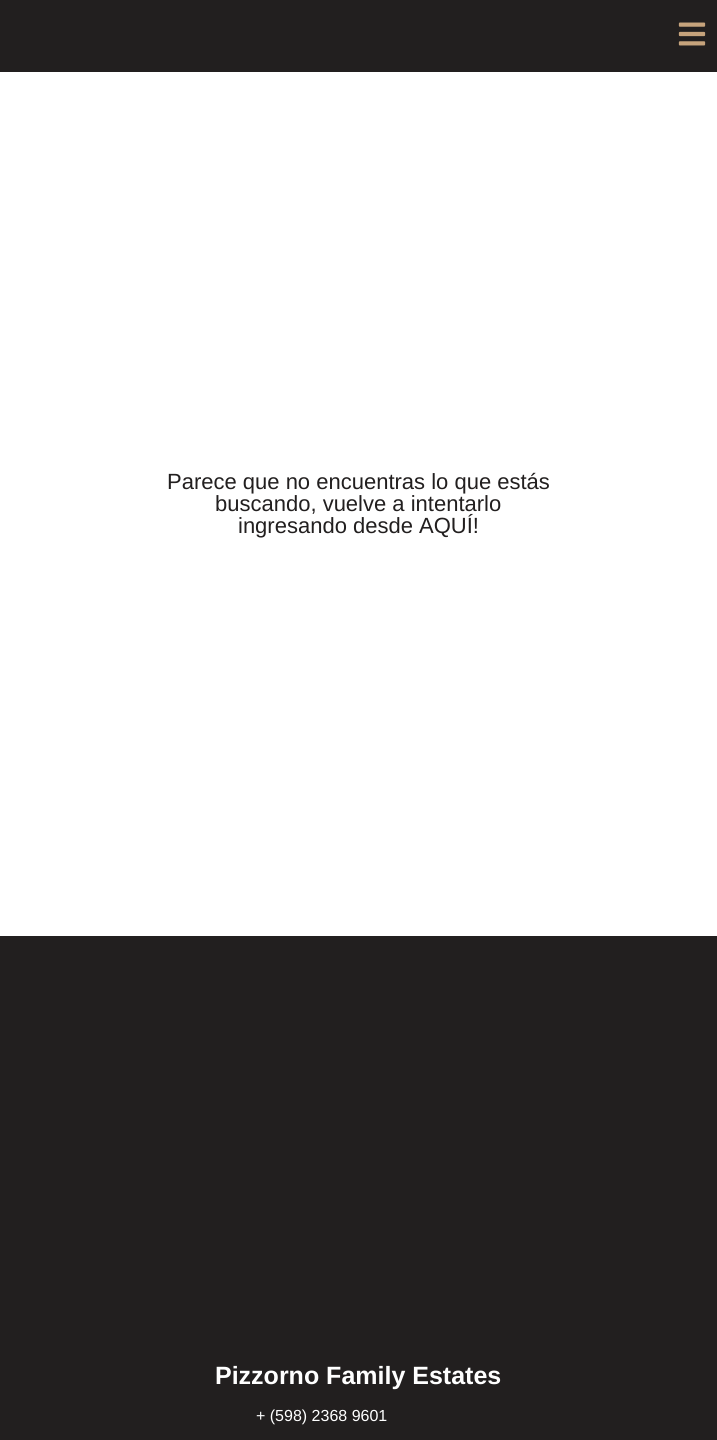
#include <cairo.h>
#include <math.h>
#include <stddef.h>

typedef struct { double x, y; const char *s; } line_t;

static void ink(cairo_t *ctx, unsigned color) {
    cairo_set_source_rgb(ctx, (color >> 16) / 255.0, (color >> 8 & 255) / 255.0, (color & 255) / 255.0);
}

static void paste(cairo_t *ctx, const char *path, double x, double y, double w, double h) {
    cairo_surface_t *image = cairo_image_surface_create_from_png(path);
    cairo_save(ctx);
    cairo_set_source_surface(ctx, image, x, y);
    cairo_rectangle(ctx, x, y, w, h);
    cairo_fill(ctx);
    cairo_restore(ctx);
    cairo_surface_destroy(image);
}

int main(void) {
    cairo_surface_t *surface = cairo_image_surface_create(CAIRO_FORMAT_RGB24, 717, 1440);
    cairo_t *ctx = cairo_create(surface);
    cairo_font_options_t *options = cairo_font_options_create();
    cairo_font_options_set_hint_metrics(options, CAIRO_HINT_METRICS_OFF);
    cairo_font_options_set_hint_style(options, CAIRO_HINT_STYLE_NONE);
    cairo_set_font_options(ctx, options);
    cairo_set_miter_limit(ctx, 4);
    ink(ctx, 0xFFFFFF);
    cairo_paint(ctx);
    ink(ctx, 0x221F1F);
    cairo_rectangle(ctx, 0, 0, 717, 72);
    cairo_fill(ctx);
    paste(ctx, "media/1.png", 678, 22, 28, 24);
    cairo_select_font_face(ctx, "Liberation Sans", CAIRO_FONT_SLANT_NORMAL, CAIRO_FONT_WEIGHT_NORMAL);
    cairo_set_font_size(ctx, 22);
    {
        static const line_t items[] = {
            {167, 489, "Parece que no encuentras lo que estás"},
            {215, 511, "buscando, vuelve a intentarlo"},
            {238, 533, "ingresando desde AQUÍ!"},
        };
        for (size_t i = 0; i < sizeof items / sizeof *items; i++) {
            cairo_move_to(ctx, items[i].x, items[i].y);
            cairo_show_text(ctx, items[i].s);
        }
    }
    cairo_rectangle(ctx, 0, 936, 717, 504);
    cairo_fill(ctx);
    cairo_select_font_face(ctx, "Liberation Sans", CAIRO_FONT_SLANT_NORMAL, CAIRO_FONT_WEIGHT_BOLD);
    cairo_set_font_size(ctx, 25);
    ink(ctx, 0xFFFFFF);
    cairo_move_to(ctx, 215, 1384);
    cairo_show_text(ctx, "Pizzorno Family Estates");
    cairo_select_font_face(ctx, "Liberation Sans", CAIRO_FONT_SLANT_NORMAL, CAIRO_FONT_WEIGHT_NORMAL);
    cairo_set_font_size(ctx, 16);
    cairo_move_to(ctx, 256, 1421);
    cairo_show_text(ctx, "+ (598) 2368 9601");
    cairo_surface_write_to_png(surface, "image.png");
    cairo_font_options_destroy(options);
    cairo_destroy(ctx);
    cairo_surface_destroy(surface);
    return 0;
}
